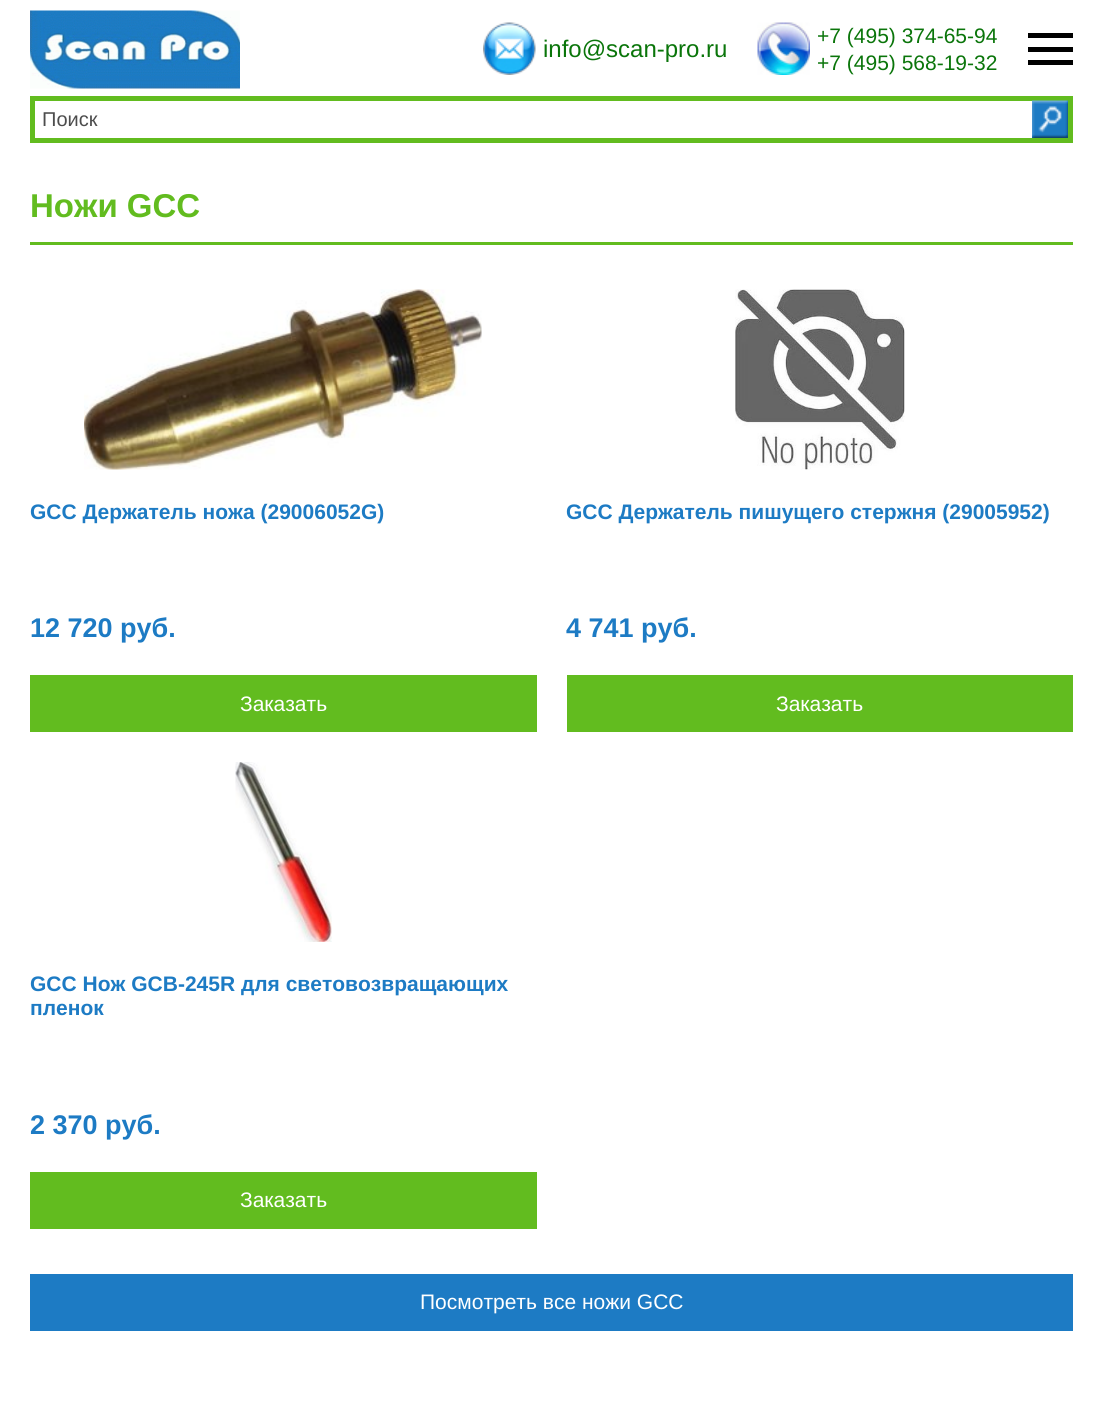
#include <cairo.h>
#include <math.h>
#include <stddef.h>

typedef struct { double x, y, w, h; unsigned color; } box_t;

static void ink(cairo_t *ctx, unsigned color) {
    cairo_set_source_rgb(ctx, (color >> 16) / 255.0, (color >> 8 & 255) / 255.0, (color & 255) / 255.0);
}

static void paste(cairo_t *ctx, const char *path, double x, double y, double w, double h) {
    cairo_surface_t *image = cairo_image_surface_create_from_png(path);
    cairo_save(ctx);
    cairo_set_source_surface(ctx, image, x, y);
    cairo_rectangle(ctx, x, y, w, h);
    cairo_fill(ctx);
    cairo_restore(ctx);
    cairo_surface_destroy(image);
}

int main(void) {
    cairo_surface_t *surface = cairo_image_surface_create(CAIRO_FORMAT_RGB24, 1102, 1412);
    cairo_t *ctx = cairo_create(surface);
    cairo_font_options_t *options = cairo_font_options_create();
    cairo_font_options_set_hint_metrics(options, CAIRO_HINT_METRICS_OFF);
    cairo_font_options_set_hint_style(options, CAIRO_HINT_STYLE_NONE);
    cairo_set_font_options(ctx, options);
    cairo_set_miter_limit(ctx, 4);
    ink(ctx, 0xFFFFFF);
    cairo_paint(ctx);
    paste(ctx, "media/1.png", 30, 10, 210, 79);
    paste(ctx, "media/2.png", 483, 22, 53, 53);
    cairo_select_font_face(ctx, "Liberation Sans", CAIRO_FONT_SLANT_NORMAL, CAIRO_FONT_WEIGHT_NORMAL);
    cairo_set_font_size(ctx, 24);
    ink(ctx, 0x0A750A);
    cairo_move_to(ctx, 543, 57);
    cairo_show_text(ctx, "info@scan-pro.ru");
    paste(ctx, "media/3.png", 757, 22, 53, 53);
    cairo_set_font_size(ctx, 21);
    cairo_move_to(ctx, 817, 43);
    cairo_show_text(ctx, "+7 (495) 374-65-94");
    cairo_move_to(ctx, 817, 70);
    cairo_show_text(ctx, "+7 (495) 568-19-32");
    {
        static const box_t items[] = {
            {1028, 33, 45, 5, 0x000000},
            {1028, 47, 45, 5, 0x000000},
            {1028, 60, 45, 5, 0x000000},
            {30, 96, 1043, 47, 0x62BC1F},
            {35, 101, 997, 37, 0xFFFFFF},
        };
        for (size_t i = 0; i < sizeof items / sizeof *items; i++) {
            ink(ctx, items[i].color);
            cairo_rectangle(ctx, items[i].x, items[i].y, items[i].w, items[i].h);
            cairo_fill(ctx);
        }
    }
    cairo_set_font_size(ctx, 20);
    ink(ctx, 0x4D4D4D);
    cairo_move_to(ctx, 42, 126);
    cairo_show_text(ctx, "Поиск");
    paste(ctx, "media/4.png", 1032, 100, 36, 38);
    ink(ctx, 0x62BC1F);
    cairo_rectangle(ctx, 30, 242, 1043, 3);
    cairo_fill(ctx);
    cairo_select_font_face(ctx, "Liberation Sans", CAIRO_FONT_SLANT_NORMAL, CAIRO_FONT_WEIGHT_BOLD);
    cairo_set_font_size(ctx, 33);
    cairo_move_to(ctx, 30, 217);
    cairo_show_text(ctx, "Ножи GCC");
    paste(ctx, "media/5.png", 84, 289, 398, 181);
    cairo_set_font_size(ctx, 21);
    ink(ctx, 0x1D7BC4);
    cairo_move_to(ctx, 30, 519);
    cairo_show_text(ctx, "GCC Держатель ножа (29006052G)");
    cairo_set_font_size(ctx, 27);
    cairo_move_to(ctx, 30, 637);
    cairo_show_text(ctx, "12 720 руб.");
    ink(ctx, 0x62BC1F);
    cairo_rectangle(ctx, 30, 675, 507, 57);
    cairo_fill(ctx);
    cairo_select_font_face(ctx, "Liberation Sans", CAIRO_FONT_SLANT_NORMAL, CAIRO_FONT_WEIGHT_NORMAL);
    cairo_set_font_size(ctx, 21);
    ink(ctx, 0xFFFFFF);
    cairo_move_to(ctx, 240, 711);
    cairo_show_text(ctx, "Заказать");
    paste(ctx, "media/6.png", 735, 289, 170, 181);
    cairo_select_font_face(ctx, "Liberation Sans", CAIRO_FONT_SLANT_NORMAL, CAIRO_FONT_WEIGHT_BOLD);
    ink(ctx, 0x1D7BC4);
    cairo_move_to(ctx, 566, 519);
    cairo_show_text(ctx, "GCC Держатель пишущего стержня (29005952)");
    cairo_set_font_size(ctx, 27);
    cairo_move_to(ctx, 566, 637);
    cairo_show_text(ctx, "4 741 руб.");
    ink(ctx, 0x62BC1F);
    cairo_rectangle(ctx, 567, 675, 506, 57);
    cairo_fill(ctx);
    cairo_select_font_face(ctx, "Liberation Sans", CAIRO_FONT_SLANT_NORMAL, CAIRO_FONT_WEIGHT_NORMAL);
    cairo_set_font_size(ctx, 21);
    ink(ctx, 0xFFFFFF);
    cairo_move_to(ctx, 776, 711);
    cairo_show_text(ctx, "Заказать");
    paste(ctx, "media/7.png", 235, 762, 97, 180);
    cairo_select_font_face(ctx, "Liberation Sans", CAIRO_FONT_SLANT_NORMAL, CAIRO_FONT_WEIGHT_BOLD);
    ink(ctx, 0x1D7BC4);
    cairo_move_to(ctx, 30, 991);
    cairo_show_text(ctx, "GCC Нож GCB-245R для световозвращающих");
    cairo_move_to(ctx, 30, 1015);
    cairo_show_text(ctx, "пленок");
    cairo_set_font_size(ctx, 27);
    cairo_move_to(ctx, 30, 1134);
    cairo_show_text(ctx, "2 370 руб.");
    ink(ctx, 0x62BC1F);
    cairo_rectangle(ctx, 30, 1172, 507, 57);
    cairo_fill(ctx);
    cairo_select_font_face(ctx, "Liberation Sans", CAIRO_FONT_SLANT_NORMAL, CAIRO_FONT_WEIGHT_NORMAL);
    cairo_set_font_size(ctx, 21);
    ink(ctx, 0xFFFFFF);
    cairo_move_to(ctx, 240, 1207);
    cairo_show_text(ctx, "Заказать");
    ink(ctx, 0x1D7BC4);
    cairo_rectangle(ctx, 30, 1274, 1043, 57);
    cairo_fill(ctx);
    ink(ctx, 0xFFFFFF);
    cairo_move_to(ctx, 420, 1309);
    cairo_show_text(ctx, "Посмотреть все ножи GCC");
    cairo_surface_write_to_png(surface, "image.png");
    cairo_font_options_destroy(options);
    cairo_destroy(ctx);
    cairo_surface_destroy(surface);
    return 0;
}
